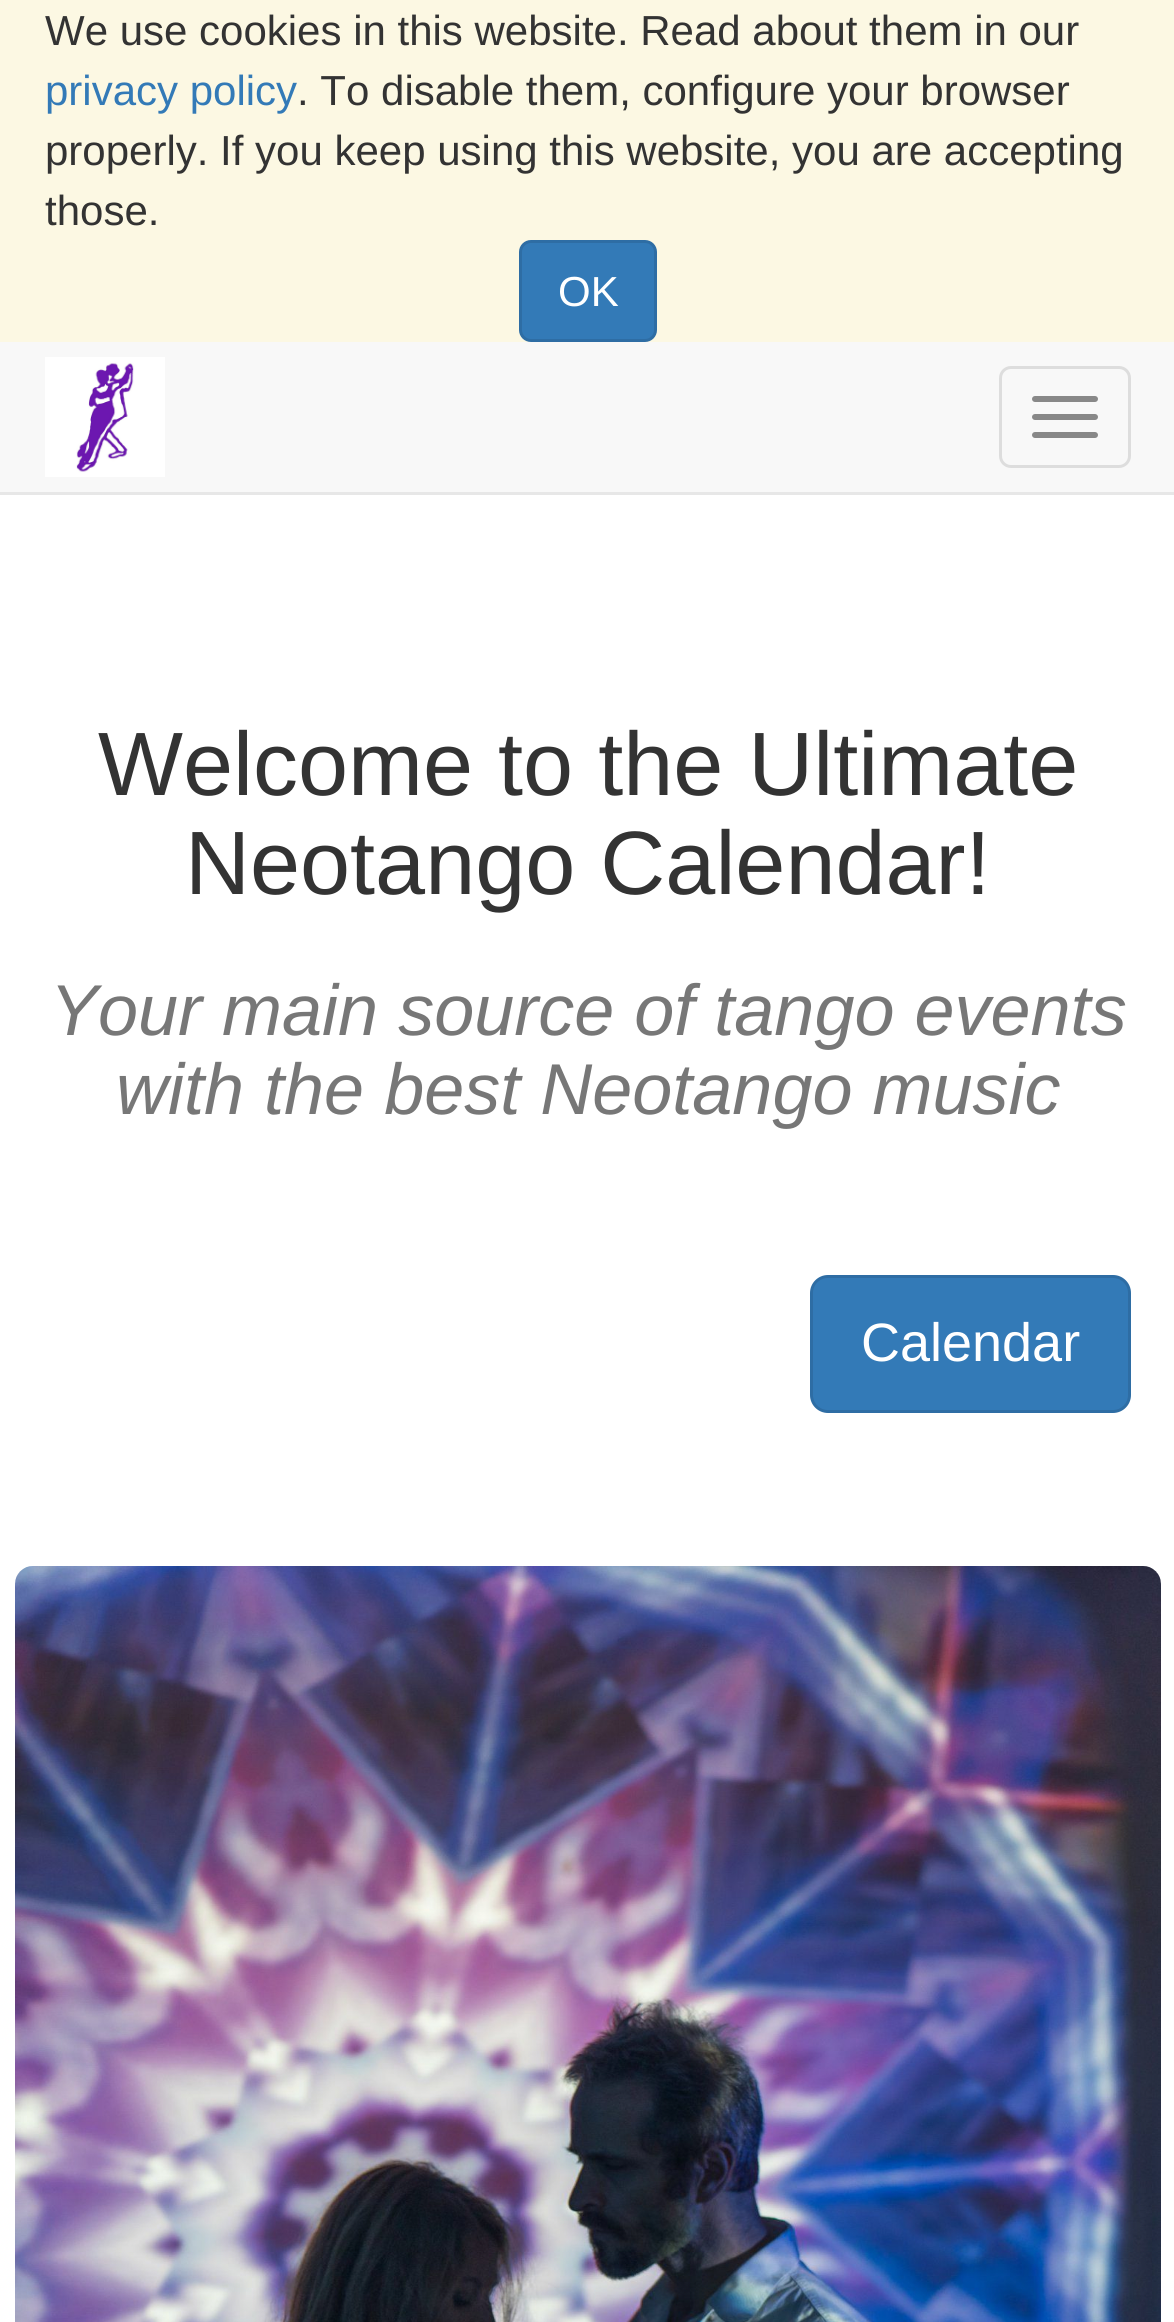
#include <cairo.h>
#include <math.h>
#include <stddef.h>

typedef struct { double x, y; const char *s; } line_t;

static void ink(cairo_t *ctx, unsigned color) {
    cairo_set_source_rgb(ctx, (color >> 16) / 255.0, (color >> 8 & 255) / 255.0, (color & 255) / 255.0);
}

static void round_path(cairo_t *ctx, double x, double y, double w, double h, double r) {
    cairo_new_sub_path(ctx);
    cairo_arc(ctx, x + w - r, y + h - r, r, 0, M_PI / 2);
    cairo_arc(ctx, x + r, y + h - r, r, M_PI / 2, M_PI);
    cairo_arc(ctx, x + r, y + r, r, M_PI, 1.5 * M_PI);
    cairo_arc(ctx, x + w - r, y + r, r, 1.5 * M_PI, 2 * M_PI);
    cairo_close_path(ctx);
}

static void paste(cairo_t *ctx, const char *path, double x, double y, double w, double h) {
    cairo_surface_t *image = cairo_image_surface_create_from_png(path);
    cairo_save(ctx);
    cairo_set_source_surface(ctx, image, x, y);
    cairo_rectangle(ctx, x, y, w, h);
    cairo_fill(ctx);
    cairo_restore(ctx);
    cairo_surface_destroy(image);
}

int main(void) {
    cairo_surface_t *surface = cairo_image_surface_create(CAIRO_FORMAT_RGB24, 1174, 2322);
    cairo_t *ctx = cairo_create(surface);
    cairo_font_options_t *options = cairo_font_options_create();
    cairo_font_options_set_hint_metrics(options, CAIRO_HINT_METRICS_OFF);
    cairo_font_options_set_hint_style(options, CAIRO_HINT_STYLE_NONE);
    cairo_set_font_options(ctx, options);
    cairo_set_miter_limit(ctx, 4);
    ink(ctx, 0xFFFFFF);
    cairo_paint(ctx);
    ink(ctx, 0xFCF8E3);
    cairo_rectangle(ctx, 0, 0, 1174, 342);
    cairo_fill(ctx);
    cairo_select_font_face(ctx, "Liberation Sans", CAIRO_FONT_SLANT_NORMAL, CAIRO_FONT_WEIGHT_NORMAL);
    cairo_set_font_size(ctx, 42);
    ink(ctx, 0x333333);
    cairo_move_to(ctx, 45, 45);
    cairo_show_text(ctx, "We use cookies in this website. Read about them in our");
    ink(ctx, 0x337AB7);
    cairo_move_to(ctx, 45, 105);
    cairo_show_text(ctx, "privacy policy");
    ink(ctx, 0x333333);
    {
        static const line_t items[] = {
            {297, 105, ". To disable them, configure your browser"},
            {45, 165, "properly. If you keep using this website, you are accepting"},
            {45, 225, "those."},
        };
        for (size_t i = 0; i < sizeof items / sizeof *items; i++) {
            cairo_move_to(ctx, items[i].x, items[i].y);
            cairo_show_text(ctx, items[i].s);
        }
    }
    ink(ctx, 0x337AB7);
    round_path(ctx, 520.5, 241.5, 135, 99, 10.5);
    cairo_fill_preserve(ctx);
    ink(ctx, 0x2E6DA4);
    cairo_set_line_width(ctx, 3);
    cairo_stroke(ctx);
    ink(ctx, 0xFFFFFF);
    cairo_move_to(ctx, 558, 306);
    cairo_show_text(ctx, "OK");
    ink(ctx, 0xF8F8F8);
    cairo_rectangle(ctx, 0, 342, 1174, 150);
    cairo_fill(ctx);
    ink(ctx, 0xE7E7E7);
    cairo_rectangle(ctx, 0, 492, 1174, 3);
    cairo_fill(ctx);
    paste(ctx, "media/1.png", 45, 357, 120, 120);
    round_path(ctx, 1000.5, 367.5, 129, 99, 10.5);
    ink(ctx, 0xDDDDDD);
    cairo_stroke(ctx);
    ink(ctx, 0x888888);
    round_path(ctx, 1032, 396, 66, 6, 3);
    cairo_fill(ctx);
    round_path(ctx, 1032, 414, 66, 6, 3);
    cairo_fill(ctx);
    round_path(ctx, 1032, 432, 66, 6, 3);
    cairo_fill(ctx);
    cairo_set_font_size(ctx, 90);
    ink(ctx, 0x333333);
    cairo_move_to(ctx, 98, 795);
    cairo_show_text(ctx, "Welcome to the Ultimate");
    cairo_move_to(ctx, 185, 894);
    cairo_show_text(ctx, "Neotango Calendar!");
    cairo_select_font_face(ctx, "Liberation Sans", CAIRO_FONT_SLANT_ITALIC, CAIRO_FONT_WEIGHT_NORMAL);
    cairo_set_font_size(ctx, 72);
    ink(ctx, 0x777777);
    cairo_move_to(ctx, 50, 1035);
    cairo_show_text(ctx, "Your main source of tango events");
    cairo_move_to(ctx, 116, 1114);
    cairo_show_text(ctx, "with the best Neotango music");
    ink(ctx, 0x337AB7);
    round_path(ctx, 811.5, 1276.5, 318, 135, 16.5);
    cairo_fill_preserve(ctx);
    ink(ctx, 0x2E6DA4);
    cairo_stroke(ctx);
    cairo_select_font_face(ctx, "Liberation Sans", CAIRO_FONT_SLANT_NORMAL, CAIRO_FONT_WEIGHT_NORMAL);
    cairo_set_font_size(ctx, 54);
    ink(ctx, 0xFFFFFF);
    cairo_move_to(ctx, 861, 1361);
    cairo_show_text(ctx, "Calendar");
    paste(ctx, "media/2.png", 15, 1566, 1146, 756);
    cairo_surface_write_to_png(surface, "image.png");
    cairo_font_options_destroy(options);
    cairo_destroy(ctx);
    cairo_surface_destroy(surface);
    return 0;
}
